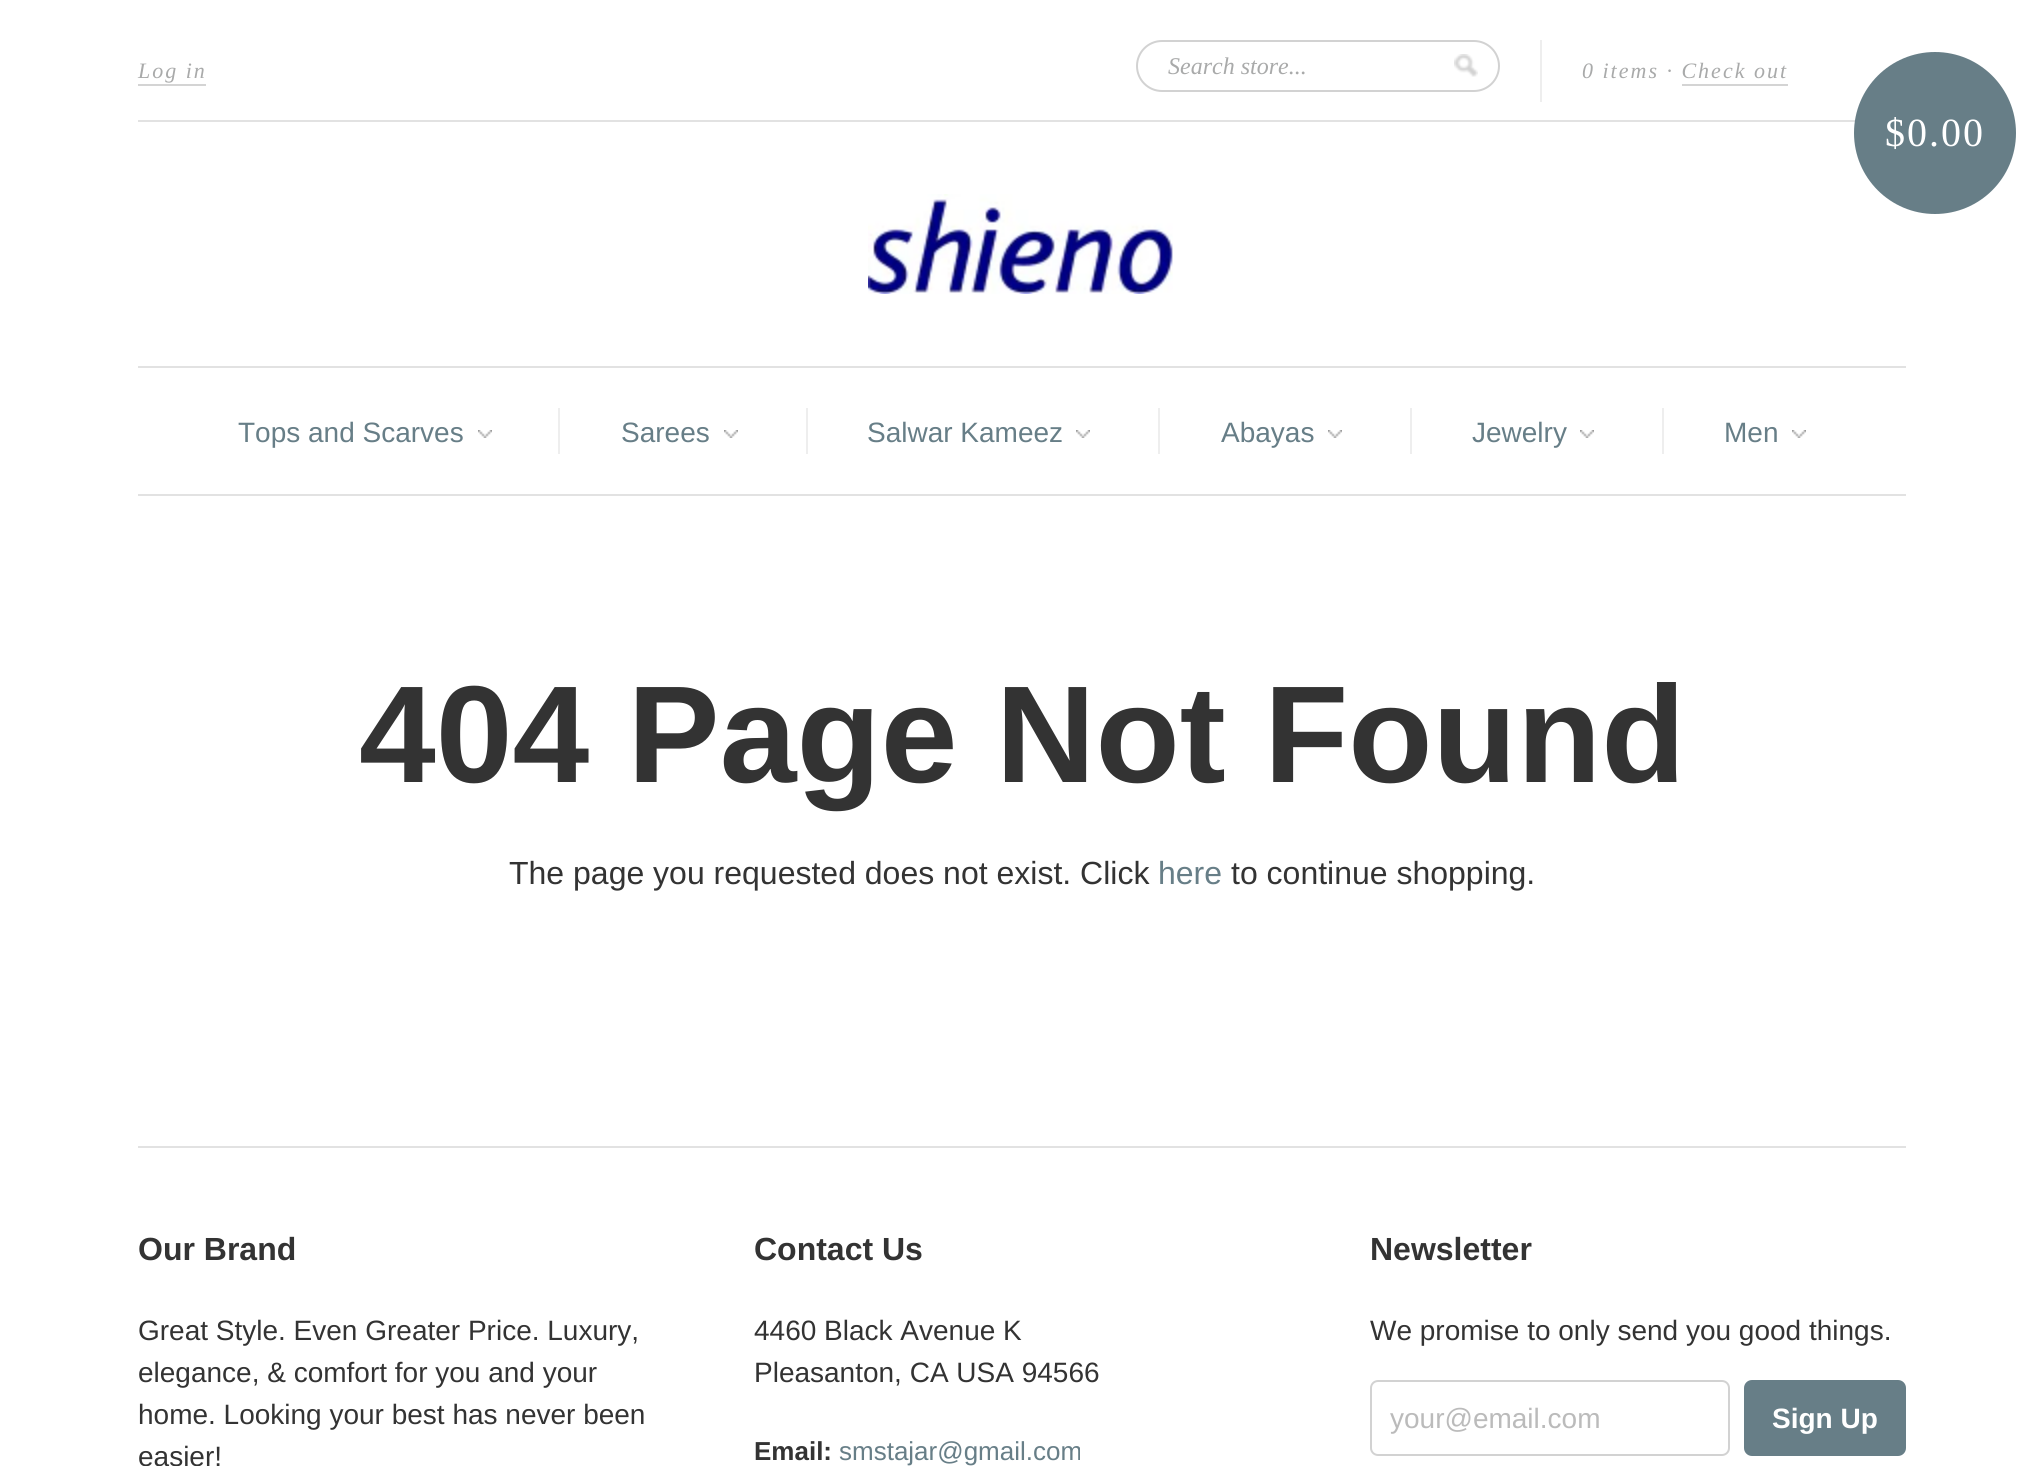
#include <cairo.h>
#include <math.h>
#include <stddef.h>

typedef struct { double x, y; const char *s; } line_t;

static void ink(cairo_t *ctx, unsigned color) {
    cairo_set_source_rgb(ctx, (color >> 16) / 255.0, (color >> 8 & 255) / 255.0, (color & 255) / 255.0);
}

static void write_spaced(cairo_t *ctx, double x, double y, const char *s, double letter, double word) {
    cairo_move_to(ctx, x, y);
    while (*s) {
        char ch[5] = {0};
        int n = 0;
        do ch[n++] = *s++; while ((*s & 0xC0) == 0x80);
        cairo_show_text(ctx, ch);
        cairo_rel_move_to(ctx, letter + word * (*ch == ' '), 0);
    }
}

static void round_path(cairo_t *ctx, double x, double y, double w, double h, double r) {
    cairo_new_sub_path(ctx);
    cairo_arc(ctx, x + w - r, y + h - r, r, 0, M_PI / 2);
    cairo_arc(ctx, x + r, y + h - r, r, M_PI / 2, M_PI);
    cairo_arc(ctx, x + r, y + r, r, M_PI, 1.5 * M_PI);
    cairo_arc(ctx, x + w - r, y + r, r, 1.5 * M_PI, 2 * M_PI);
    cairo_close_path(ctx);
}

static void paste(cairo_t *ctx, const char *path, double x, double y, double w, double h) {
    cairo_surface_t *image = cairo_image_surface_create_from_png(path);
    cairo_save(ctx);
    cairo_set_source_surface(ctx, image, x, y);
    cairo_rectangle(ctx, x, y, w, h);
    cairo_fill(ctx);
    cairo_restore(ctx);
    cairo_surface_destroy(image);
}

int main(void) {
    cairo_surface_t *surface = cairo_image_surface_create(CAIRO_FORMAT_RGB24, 2043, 1466);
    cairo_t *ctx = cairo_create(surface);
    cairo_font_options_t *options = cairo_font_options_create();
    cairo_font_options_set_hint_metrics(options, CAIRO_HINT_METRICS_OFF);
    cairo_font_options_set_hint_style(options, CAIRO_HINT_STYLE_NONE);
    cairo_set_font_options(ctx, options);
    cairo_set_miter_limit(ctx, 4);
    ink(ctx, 0xFFFFFF);
    cairo_paint(ctx);
    ink(ctx, 0xE2E2E2);
    cairo_rectangle(ctx, 138, 494, 1768, 2);
    cairo_fill(ctx);
    cairo_rectangle(ctx, 138, 120, 1718, 2);
    cairo_fill(ctx);
    cairo_select_font_face(ctx, "Liberation Serif", CAIRO_FONT_SLANT_ITALIC, CAIRO_FONT_WEIGHT_NORMAL);
    cairo_set_font_size(ctx, 22);
    ink(ctx, 0xA9AAAA);
    write_spaced(ctx, 138, 78, "Log in", 2, 0);
    ink(ctx, 0xD4D4D4);
    cairo_rectangle(ctx, 138, 84, 68, 2);
    cairo_fill(ctx);
    round_path(ctx, 1137, 41, 362, 50, 25);
    ink(ctx, 0xD2D2D2);
    cairo_stroke(ctx);
    cairo_set_font_size(ctx, 24);
    ink(ctx, 0xA9AAAA);
    cairo_move_to(ctx, 1168, 74);
    cairo_show_text(ctx, "Search store...");
    paste(ctx, "media/1.png", 1454, 54, 24, 23);
    ink(ctx, 0xEEEEEE);
    cairo_rectangle(ctx, 1540, 40, 2, 62);
    cairo_fill(ctx);
    cairo_set_font_size(ctx, 22);
    ink(ctx, 0xA9AAAA);
    write_spaced(ctx, 1582, 78, "0 items · Check out", 2, 0);
    ink(ctx, 0xD4D4D4);
    cairo_rectangle(ctx, 1682, 84, 106, 2);
    cairo_fill(ctx);
    ink(ctx, 0x677E87);
    cairo_arc(ctx, 1935, 133, 81, 0, 2 * M_PI);
    cairo_fill(ctx);
    cairo_select_font_face(ctx, "Liberation Serif", CAIRO_FONT_SLANT_NORMAL, CAIRO_FONT_WEIGHT_NORMAL);
    cairo_set_font_size(ctx, 40);
    ink(ctx, 0xFFFFFF);
    write_spaced(ctx, 1885, 146, "$0.00", 2, 0);
    paste(ctx, "media/2.png", 868, 194, 305, 100);
    ink(ctx, 0xE2E2E2);
    cairo_rectangle(ctx, 138, 366, 1768, 2);
    cairo_fill(ctx);
    cairo_select_font_face(ctx, "Liberation Sans", CAIRO_FONT_SLANT_NORMAL, CAIRO_FONT_WEIGHT_NORMAL);
    cairo_set_font_size(ctx, 28);
    ink(ctx, 0x677E87);
    cairo_move_to(ctx, 238, 442);
    cairo_show_text(ctx, "Tops and Scarves");
    paste(ctx, "media/3.png", 478, 430, 14, 8);
    ink(ctx, 0xEEEEEE);
    cairo_rectangle(ctx, 558, 408, 2, 46);
    cairo_fill(ctx);
    ink(ctx, 0x677E87);
    cairo_move_to(ctx, 621, 442);
    cairo_show_text(ctx, "Sarees");
    paste(ctx, "media/3.png", 724, 430, 14, 8);
    ink(ctx, 0xEEEEEE);
    cairo_rectangle(ctx, 806, 408, 2, 46);
    cairo_fill(ctx);
    ink(ctx, 0x677E87);
    cairo_move_to(ctx, 867, 442);
    cairo_show_text(ctx, "Salwar Kameez");
    paste(ctx, "media/3.png", 1076, 430, 14, 8);
    ink(ctx, 0xEEEEEE);
    cairo_rectangle(ctx, 1158, 408, 2, 46);
    cairo_fill(ctx);
    ink(ctx, 0x677E87);
    cairo_move_to(ctx, 1221, 442);
    cairo_show_text(ctx, "Abayas");
    paste(ctx, "media/3.png", 1328, 430, 14, 8);
    ink(ctx, 0xEEEEEE);
    cairo_rectangle(ctx, 1410, 408, 2, 46);
    cairo_fill(ctx);
    ink(ctx, 0x677E87);
    cairo_move_to(ctx, 1472, 442);
    cairo_show_text(ctx, "Jewelry");
    paste(ctx, "media/3.png", 1580, 430, 14, 8);
    ink(ctx, 0xEEEEEE);
    cairo_rectangle(ctx, 1662, 408, 2, 46);
    cairo_fill(ctx);
    ink(ctx, 0x677E87);
    cairo_move_to(ctx, 1724, 442);
    cairo_show_text(ctx, "Men");
    paste(ctx, "media/3.png", 1792, 430, 14, 8);
    cairo_select_font_face(ctx, "Liberation Sans", CAIRO_FONT_SLANT_NORMAL, CAIRO_FONT_WEIGHT_BOLD);
    cairo_set_font_size(ctx, 138);
    ink(ctx, 0x333333);
    cairo_move_to(ctx, 359, 782);
    cairo_show_text(ctx, "404 Page Not Found");
    cairo_select_font_face(ctx, "Liberation Sans", CAIRO_FONT_SLANT_NORMAL, CAIRO_FONT_WEIGHT_NORMAL);
    cairo_set_font_size(ctx, 32);
    cairo_move_to(ctx, 509, 884);
    cairo_show_text(ctx, "The page you requested does not exist. Click");
    ink(ctx, 0x677E87);
    cairo_move_to(ctx, 1158, 884);
    cairo_show_text(ctx, "here");
    ink(ctx, 0x333333);
    cairo_move_to(ctx, 1231, 884);
    cairo_show_text(ctx, "to continue shopping.");
    ink(ctx, 0xE2E2E2);
    cairo_rectangle(ctx, 138, 1146, 1768, 2);
    cairo_fill(ctx);
    cairo_select_font_face(ctx, "Liberation Sans", CAIRO_FONT_SLANT_NORMAL, CAIRO_FONT_WEIGHT_BOLD);
    ink(ctx, 0x333333);
    cairo_move_to(ctx, 138, 1260);
    cairo_show_text(ctx, "Our Brand");
    cairo_select_font_face(ctx, "Liberation Sans", CAIRO_FONT_SLANT_NORMAL, CAIRO_FONT_WEIGHT_NORMAL);
    cairo_set_font_size(ctx, 28);
    {
        static const line_t items[] = {
            {138, 1340, "Great Style. Even Greater Price. Luxury,"},
            {138, 1382, "elegance, & comfort for you and your"},
            {138, 1424, "home. Looking your best has never been"},
            {138, 1466, "easier!"},
        };
        for (size_t i = 0; i < sizeof items / sizeof *items; i++) {
            cairo_move_to(ctx, items[i].x, items[i].y);
            cairo_show_text(ctx, items[i].s);
        }
    }
    cairo_select_font_face(ctx, "Liberation Sans", CAIRO_FONT_SLANT_NORMAL, CAIRO_FONT_WEIGHT_BOLD);
    cairo_set_font_size(ctx, 32);
    cairo_move_to(ctx, 754, 1260);
    cairo_show_text(ctx, "Contact Us");
    cairo_select_font_face(ctx, "Liberation Sans", CAIRO_FONT_SLANT_NORMAL, CAIRO_FONT_WEIGHT_NORMAL);
    cairo_set_font_size(ctx, 28);
    cairo_move_to(ctx, 754, 1340);
    cairo_show_text(ctx, "4460 Black Avenue K");
    cairo_move_to(ctx, 754, 1382);
    cairo_show_text(ctx, "Pleasanton, CA USA 94566");
    cairo_select_font_face(ctx, "Liberation Sans", CAIRO_FONT_SLANT_NORMAL, CAIRO_FONT_WEIGHT_BOLD);
    cairo_set_font_size(ctx, 26);
    cairo_move_to(ctx, 754, 1460);
    cairo_show_text(ctx, "Email:");
    cairo_select_font_face(ctx, "Liberation Sans", CAIRO_FONT_SLANT_NORMAL, CAIRO_FONT_WEIGHT_NORMAL);
    ink(ctx, 0x677E87);
    cairo_move_to(ctx, 839, 1460);
    cairo_show_text(ctx, "smstajar@gmail.com");
    cairo_select_font_face(ctx, "Liberation Sans", CAIRO_FONT_SLANT_NORMAL, CAIRO_FONT_WEIGHT_BOLD);
    cairo_set_font_size(ctx, 32);
    ink(ctx, 0x333333);
    cairo_move_to(ctx, 1370, 1260);
    cairo_show_text(ctx, "Newsletter");
    cairo_select_font_face(ctx, "Liberation Sans", CAIRO_FONT_SLANT_NORMAL, CAIRO_FONT_WEIGHT_NORMAL);
    cairo_set_font_size(ctx, 28);
    cairo_move_to(ctx, 1370, 1340);
    cairo_show_text(ctx, "We promise to only send you good things.");
    round_path(ctx, 1371, 1381, 358, 74, 7);
    ink(ctx, 0xD2D2D2);
    cairo_stroke(ctx);
    ink(ctx, 0xBBBBBB);
    cairo_move_to(ctx, 1390, 1428);
    cairo_show_text(ctx, "your@email.com");
    ink(ctx, 0x677E87);
    round_path(ctx, 1744, 1380, 162, 76, 8);
    cairo_fill(ctx);
    cairo_select_font_face(ctx, "Liberation Sans", CAIRO_FONT_SLANT_NORMAL, CAIRO_FONT_WEIGHT_BOLD);
    ink(ctx, 0xFFFFFF);
    cairo_move_to(ctx, 1772, 1428);
    cairo_show_text(ctx, "Sign Up");
    cairo_surface_write_to_png(surface, "image.png");
    cairo_font_options_destroy(options);
    cairo_destroy(ctx);
    cairo_surface_destroy(surface);
    return 0;
}
